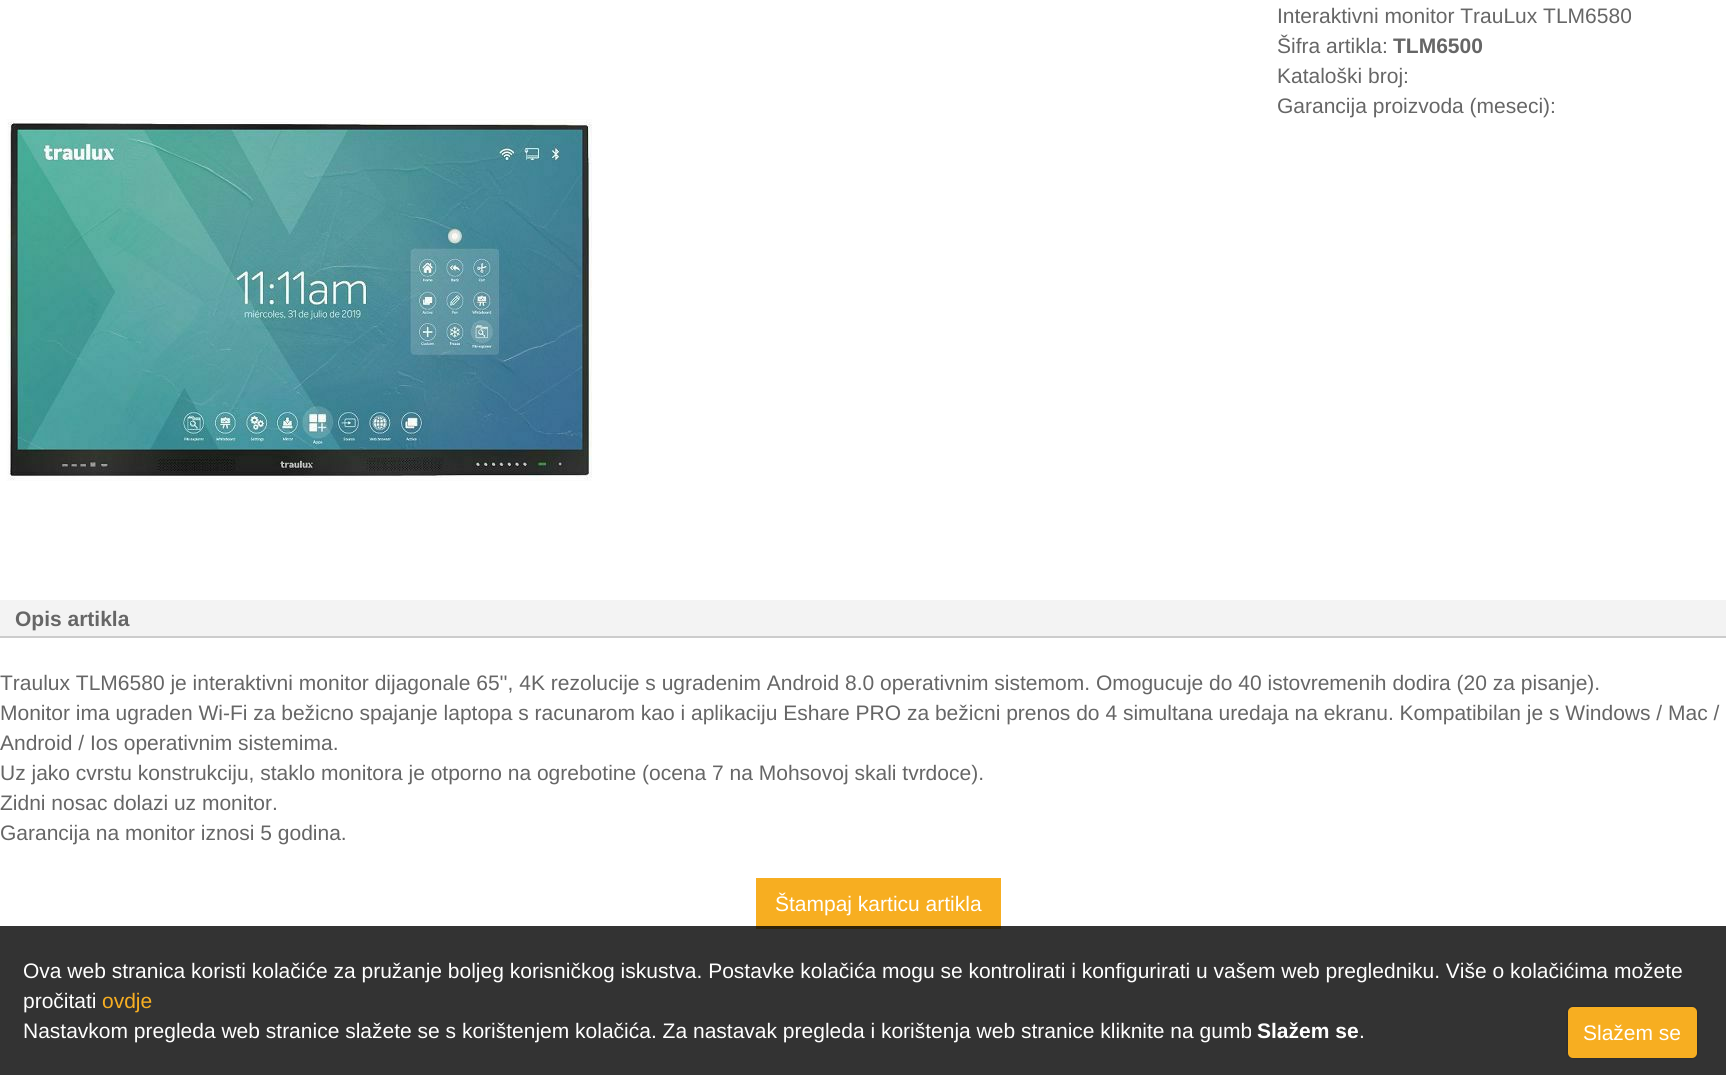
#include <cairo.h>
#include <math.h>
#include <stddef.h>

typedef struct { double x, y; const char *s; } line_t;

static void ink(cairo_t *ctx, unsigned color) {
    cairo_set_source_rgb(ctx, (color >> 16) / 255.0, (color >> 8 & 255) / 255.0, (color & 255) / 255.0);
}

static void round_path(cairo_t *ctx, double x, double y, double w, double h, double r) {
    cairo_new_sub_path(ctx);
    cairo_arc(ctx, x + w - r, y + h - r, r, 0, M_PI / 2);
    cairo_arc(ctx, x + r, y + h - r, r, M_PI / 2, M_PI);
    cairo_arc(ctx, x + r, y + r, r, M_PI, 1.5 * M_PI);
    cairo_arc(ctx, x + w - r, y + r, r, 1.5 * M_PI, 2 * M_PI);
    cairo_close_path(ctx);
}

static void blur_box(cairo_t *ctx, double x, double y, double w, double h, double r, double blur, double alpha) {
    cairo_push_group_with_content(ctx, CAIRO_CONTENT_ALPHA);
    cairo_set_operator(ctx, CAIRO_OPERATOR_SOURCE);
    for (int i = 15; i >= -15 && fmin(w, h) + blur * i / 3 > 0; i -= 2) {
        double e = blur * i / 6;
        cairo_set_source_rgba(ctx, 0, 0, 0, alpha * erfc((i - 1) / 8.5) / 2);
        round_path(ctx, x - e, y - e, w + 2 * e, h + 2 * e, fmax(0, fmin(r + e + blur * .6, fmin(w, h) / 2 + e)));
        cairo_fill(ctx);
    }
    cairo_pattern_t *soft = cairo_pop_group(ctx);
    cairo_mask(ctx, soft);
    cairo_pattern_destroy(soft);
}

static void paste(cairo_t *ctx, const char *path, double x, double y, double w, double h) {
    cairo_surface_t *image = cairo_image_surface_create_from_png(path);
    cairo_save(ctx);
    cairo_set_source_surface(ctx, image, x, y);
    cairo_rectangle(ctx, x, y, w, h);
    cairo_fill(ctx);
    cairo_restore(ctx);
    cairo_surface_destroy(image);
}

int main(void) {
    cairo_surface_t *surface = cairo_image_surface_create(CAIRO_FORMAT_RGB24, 1726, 1075);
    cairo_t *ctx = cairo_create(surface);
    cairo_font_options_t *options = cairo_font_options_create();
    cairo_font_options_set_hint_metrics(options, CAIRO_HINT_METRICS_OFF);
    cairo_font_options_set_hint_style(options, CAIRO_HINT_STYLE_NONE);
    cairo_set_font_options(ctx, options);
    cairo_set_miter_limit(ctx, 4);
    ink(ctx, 0xFFFFFF);
    cairo_paint(ctx);
    ink(ctx, 0x333333);
    cairo_rectangle(ctx, 0, 926, 1726, 149);
    cairo_fill(ctx);
    cairo_select_font_face(ctx, "Liberation Sans", CAIRO_FONT_SLANT_NORMAL, CAIRO_FONT_WEIGHT_NORMAL);
    cairo_set_font_size(ctx, 21);
    ink(ctx, 0x666666);
    cairo_move_to(ctx, 1277, 23);
    cairo_show_text(ctx, "Interaktivni monitor TrauLux TLM6580");
    cairo_move_to(ctx, 1277, 53);
    cairo_show_text(ctx, "Šifra artikla:");
    cairo_select_font_face(ctx, "Liberation Sans", CAIRO_FONT_SLANT_NORMAL, CAIRO_FONT_WEIGHT_BOLD);
    cairo_move_to(ctx, 1393, 53);
    cairo_show_text(ctx, "TLM6500");
    cairo_select_font_face(ctx, "Liberation Sans", CAIRO_FONT_SLANT_NORMAL, CAIRO_FONT_WEIGHT_NORMAL);
    cairo_move_to(ctx, 1277, 83);
    cairo_show_text(ctx, "Kataloški broj:");
    cairo_move_to(ctx, 1277, 113);
    cairo_show_text(ctx, "Garancija proizvoda (meseci):");
    paste(ctx, "media/1.png", 6, 119, 586, 362);
    ink(ctx, 0xF3F3F3);
    cairo_rectangle(ctx, 0, 600, 1726, 36);
    cairo_fill(ctx);
    ink(ctx, 0xCCCCCC);
    cairo_rectangle(ctx, 0, 636, 1726, 2);
    cairo_fill(ctx);
    cairo_select_font_face(ctx, "Liberation Sans", CAIRO_FONT_SLANT_NORMAL, CAIRO_FONT_WEIGHT_BOLD);
    ink(ctx, 0x666666);
    cairo_move_to(ctx, 15, 626);
    cairo_show_text(ctx, "Opis artikla");
    cairo_select_font_face(ctx, "Liberation Sans", CAIRO_FONT_SLANT_NORMAL, CAIRO_FONT_WEIGHT_NORMAL);
    {
        static const line_t items[] = {
            {0, 690, "Traulux TLM6580 je interaktivni monitor dijagonale 65'', 4K rezolucije s ugradenim Android 8.0 operativnim sistemom. Omogucuje do 40 istovremenih dodira (20 za pisanje)."},
            {0, 720, "Monitor ima ugraden Wi-Fi za bežicno spajanje laptopa s racunarom kao i aplikaciju Eshare PRO za bežicni prenos do 4 simultana uredaja na ekranu. Kompatibilan je s Windows / Mac /"},
            {0, 750, "Android / Ios operativnim sistemima."},
            {0, 780, "Uz jako cvrstu konstrukciju, staklo monitora je otporno na ogrebotine (ocena 7 na Mohsovoj skali tvrdoce)."},
            {0, 810, "Zidni nosac dolazi uz monitor."},
            {0, 840, "Garancija na monitor iznosi 5 godina."},
        };
        for (size_t i = 0; i < sizeof items / sizeof *items; i++) {
            cairo_move_to(ctx, items[i].x, items[i].y);
            cairo_show_text(ctx, items[i].s);
        }
    }
    ink(ctx, 0xF7AE21);
    cairo_rectangle(ctx, 756, 878, 245, 48);
    cairo_fill(ctx);
    ink(ctx, 0x312307);
    cairo_rectangle(ctx, 756, 926, 245, 3);
    cairo_fill(ctx);
    ink(ctx, 0xFFFFFF);
    {
        static const line_t items[] = {
            {775, 911, "Štampaj karticu artikla"},
            {23, 978, "Ova web stranica koristi kolačiće za pružanje boljeg korisničkog iskustva. Postavke kolačića mogu se kontrolirati i konfigurirati u vašem web pregledniku. Više o kolačićima možete"},
            {23, 1008, "pročitati"},
        };
        for (size_t i = 0; i < sizeof items / sizeof *items; i++) {
            cairo_move_to(ctx, items[i].x, items[i].y);
            cairo_show_text(ctx, items[i].s);
        }
    }
    ink(ctx, 0xF7AE21);
    cairo_move_to(ctx, 102, 1008);
    cairo_show_text(ctx, "ovdje");
    ink(ctx, 0xFFFFFF);
    cairo_move_to(ctx, 23, 1038);
    cairo_show_text(ctx, "Nastavkom pregleda web stranice slažete se s korištenjem kolačića. Za nastavak pregleda i korištenja web stranice kliknite na gumb");
    cairo_select_font_face(ctx, "Liberation Sans", CAIRO_FONT_SLANT_NORMAL, CAIRO_FONT_WEIGHT_BOLD);
    cairo_move_to(ctx, 1257, 1038);
    cairo_show_text(ctx, "Slažem se");
    cairo_select_font_face(ctx, "Liberation Sans", CAIRO_FONT_SLANT_NORMAL, CAIRO_FONT_WEIGHT_NORMAL);
    cairo_move_to(ctx, 1359, 1038);
    cairo_show_text(ctx, ".");
    ink(ctx, 0x000000);
    blur_box(ctx, 1568, 1007, 129, 51, 5, 1.5, 0.25);
    ink(ctx, 0xF7AE21);
    round_path(ctx, 1568, 1007, 129, 51, 5);
    cairo_fill(ctx);
    ink(ctx, 0xFFFFFF);
    cairo_move_to(ctx, 1583, 1040);
    cairo_show_text(ctx, "Slažem se");
    cairo_surface_write_to_png(surface, "image.png");
    cairo_font_options_destroy(options);
    cairo_destroy(ctx);
    cairo_surface_destroy(surface);
    return 0;
}
